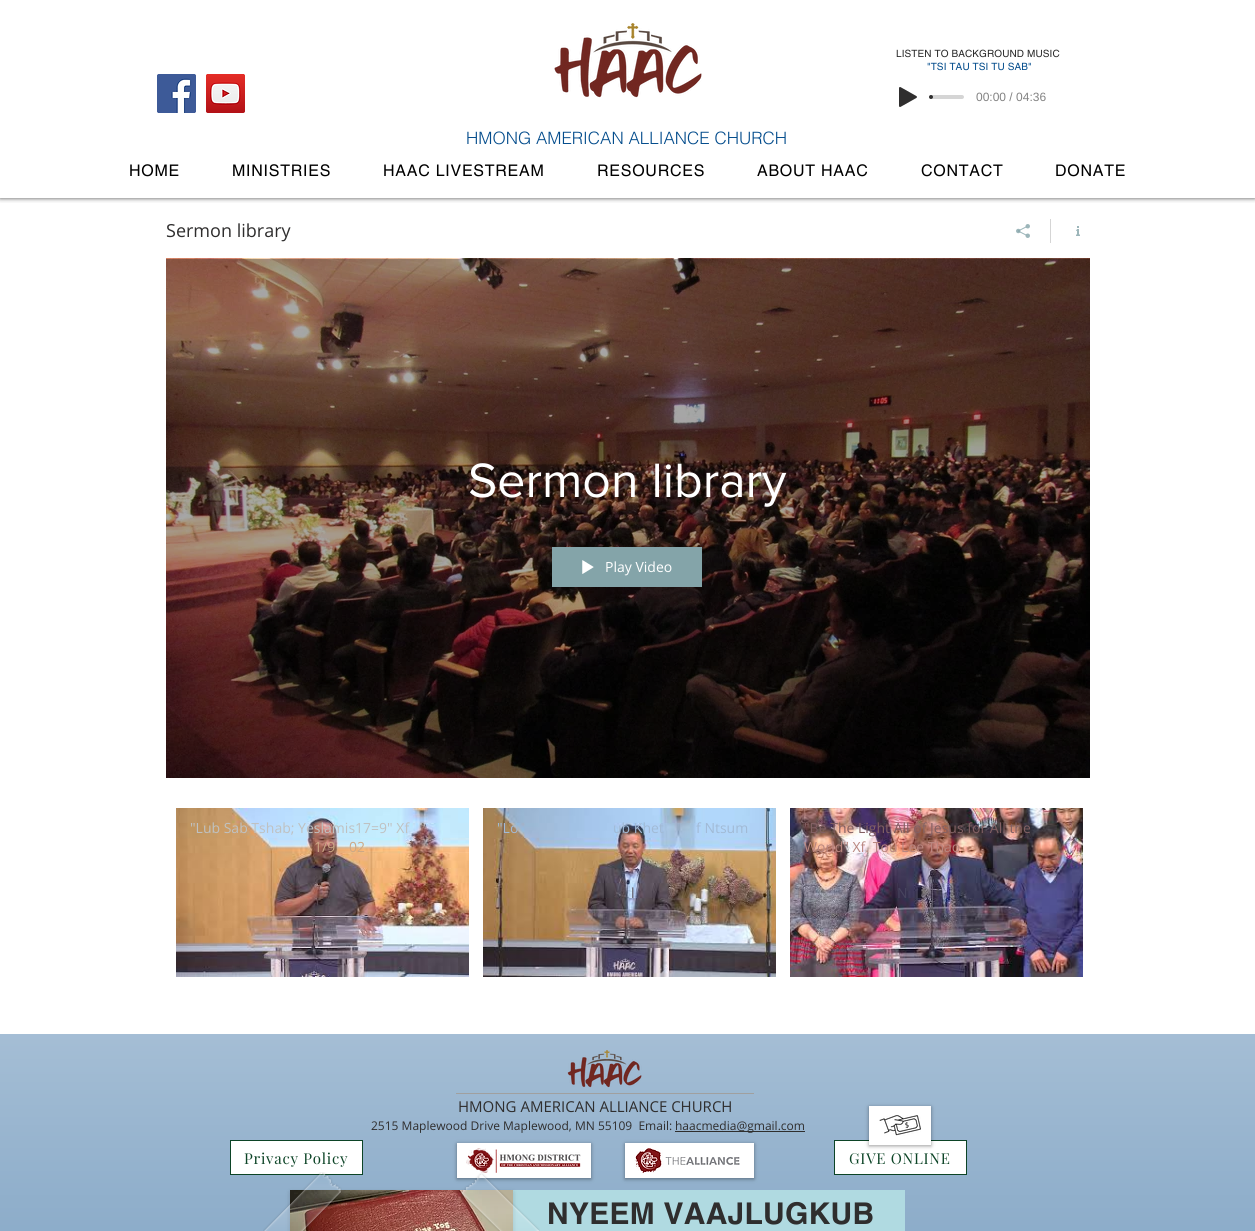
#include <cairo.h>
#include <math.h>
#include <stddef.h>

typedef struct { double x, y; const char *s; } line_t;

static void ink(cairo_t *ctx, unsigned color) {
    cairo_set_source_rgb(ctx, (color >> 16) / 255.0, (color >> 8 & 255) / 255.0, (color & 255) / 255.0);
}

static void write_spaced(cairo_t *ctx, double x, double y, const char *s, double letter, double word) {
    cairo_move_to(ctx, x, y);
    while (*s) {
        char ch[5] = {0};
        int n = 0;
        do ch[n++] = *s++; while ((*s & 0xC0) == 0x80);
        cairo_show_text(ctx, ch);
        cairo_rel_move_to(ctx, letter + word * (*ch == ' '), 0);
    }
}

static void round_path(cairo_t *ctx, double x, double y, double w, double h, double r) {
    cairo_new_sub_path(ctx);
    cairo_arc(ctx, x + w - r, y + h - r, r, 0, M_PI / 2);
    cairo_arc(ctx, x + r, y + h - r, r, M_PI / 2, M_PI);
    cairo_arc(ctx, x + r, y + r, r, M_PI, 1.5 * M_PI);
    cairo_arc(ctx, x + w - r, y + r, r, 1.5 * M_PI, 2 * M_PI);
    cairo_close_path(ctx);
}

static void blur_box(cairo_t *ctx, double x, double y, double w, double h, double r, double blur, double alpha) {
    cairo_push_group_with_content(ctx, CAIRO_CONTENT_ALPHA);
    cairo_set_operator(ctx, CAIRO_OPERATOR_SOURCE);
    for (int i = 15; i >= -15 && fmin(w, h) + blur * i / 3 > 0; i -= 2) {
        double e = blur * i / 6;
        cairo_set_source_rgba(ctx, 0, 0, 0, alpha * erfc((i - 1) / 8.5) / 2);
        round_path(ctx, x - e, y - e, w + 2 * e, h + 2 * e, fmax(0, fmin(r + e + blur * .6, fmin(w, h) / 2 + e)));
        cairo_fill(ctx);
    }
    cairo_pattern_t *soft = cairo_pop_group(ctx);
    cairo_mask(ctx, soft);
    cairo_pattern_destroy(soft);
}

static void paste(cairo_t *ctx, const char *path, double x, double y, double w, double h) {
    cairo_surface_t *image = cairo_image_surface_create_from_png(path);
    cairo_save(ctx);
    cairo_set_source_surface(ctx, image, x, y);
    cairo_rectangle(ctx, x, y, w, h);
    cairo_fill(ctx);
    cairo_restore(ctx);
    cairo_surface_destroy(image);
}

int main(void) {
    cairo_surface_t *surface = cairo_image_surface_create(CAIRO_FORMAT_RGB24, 1255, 1231);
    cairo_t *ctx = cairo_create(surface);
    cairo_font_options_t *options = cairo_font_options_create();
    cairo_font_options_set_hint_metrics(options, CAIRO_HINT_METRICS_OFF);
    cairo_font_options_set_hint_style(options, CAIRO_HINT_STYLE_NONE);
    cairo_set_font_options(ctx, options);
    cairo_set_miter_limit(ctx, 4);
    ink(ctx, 0xFFFFFF);
    cairo_paint(ctx);
    cairo_save(ctx);
    cairo_rectangle(ctx, 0, 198, 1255, 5);
    cairo_clip(ctx);
    ink(ctx, 0x000000);
    blur_box(ctx, 0, 0, 1255, 198, 0, 2.5, 0.7);
    cairo_restore(ctx);
    paste(ctx, "media/1.png", 554, 23, 148, 75);
    cairo_select_font_face(ctx, "helvetica", CAIRO_FONT_SLANT_NORMAL, CAIRO_FONT_WEIGHT_NORMAL);
    cairo_set_font_size(ctx, 10);
    ink(ctx, 0x292929);
    write_spaced(ctx, 896, 57, "LISTEN TO BACKGROUND MUSIC", 0.1, 0);
    ink(ctx, 0x034C8C);
    write_spaced(ctx, 927, 70, "\"TSI TAU TSI TU SAB\"", 0.1, 0);
    paste(ctx, "media/2.png", 157, 74, 39, 39);
    paste(ctx, "media/3.png", 206, 74, 39, 39);
    paste(ctx, "media/4.png", 899, 87, 18, 20);
    ink(ctx, 0xD5D5D5);
    round_path(ctx, 931, 95, 33, 4, 2);
    cairo_fill(ctx);
    ink(ctx, 0x2F2E2E);
    cairo_arc(ctx, 931, 97, 2, 0, 2 * M_PI);
    cairo_fill(ctx);
    cairo_select_font_face(ctx, "Liberation Sans", CAIRO_FONT_SLANT_NORMAL, CAIRO_FONT_WEIGHT_NORMAL);
    cairo_set_font_size(ctx, 12);
    ink(ctx, 0x828282);
    cairo_move_to(ctx, 976, 101);
    cairo_show_text(ctx, "00:00 / 04:36");
    cairo_select_font_face(ctx, "helvetica Light", CAIRO_FONT_SLANT_NORMAL, CAIRO_FONT_WEIGHT_NORMAL);
    cairo_set_font_size(ctx, 17);
    ink(ctx, 0x034C8C);
    cairo_move_to(ctx, 466, 144);
    cairo_show_text(ctx, "HMONG AMERICAN ALLIANCE CHURCH");
    cairo_select_font_face(ctx, "helvetica", CAIRO_FONT_SLANT_NORMAL, CAIRO_FONT_WEIGHT_NORMAL);
    cairo_set_font_size(ctx, 16);
    ink(ctx, 0x000000);
    {
        static const line_t items[] = {
            {129, 176, "HOME"},
            {232, 176, "MINISTRIES"},
            {383, 176, "HAAC LIVESTREAM"},
            {597, 176, "RESOURCES"},
            {757, 176, "ABOUT HAAC"},
            {921, 176, "CONTACT"},
            {1055, 176, "DONATE"},
        };
        for (size_t i = 0; i < sizeof items / sizeof *items; i++) {
            write_spaced(ctx, items[i].x, items[i].y, items[i].s, 0.75, 0);
        }
    }
    cairo_select_font_face(ctx, "Open Sans", CAIRO_FONT_SLANT_NORMAL, CAIRO_FONT_WEIGHT_NORMAL);
    cairo_set_font_size(ctx, 18);
    ink(ctx, 0x2F2E2E);
    cairo_move_to(ctx, 166, 237);
    cairo_show_text(ctx, "Sermon library");
    ink(ctx, 0xD5D5D5);
    cairo_rectangle(ctx, 1050, 219, 1, 24);
    cairo_fill(ctx);
    paste(ctx, "media/5.png", 1016, 224, 14, 14);
    paste(ctx, "media/6.png", 1076, 226, 4, 10);
    paste(ctx, "media/7.png", 166, 258, 924, 1);
    paste(ctx, "media/8.png", 166, 259, 924, 519);
    cairo_select_font_face(ctx, "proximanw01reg", CAIRO_FONT_SLANT_NORMAL, CAIRO_FONT_WEIGHT_NORMAL);
    cairo_set_font_size(ctx, 50);
    ink(ctx, 0xFFFFFF);
    cairo_move_to(ctx, 468, 497);
    cairo_show_text(ctx, "Sermon library");
    ink(ctx, 0x84A4A9);
    cairo_rectangle(ctx, 552, 547, 150, 40);
    cairo_fill(ctx);
    paste(ctx, "media/9.png", 582, 560, 12, 14);
    cairo_select_font_face(ctx, "Open Sans", CAIRO_FONT_SLANT_NORMAL, CAIRO_FONT_WEIGHT_NORMAL);
    cairo_set_font_size(ctx, 14);
    ink(ctx, 0xFFFFFF);
    cairo_move_to(ctx, 605, 572);
    cairo_show_text(ctx, "Play Video");
    paste(ctx, "media/10.png", 176, 808, 27, 169);
    paste(ctx, "media/11.png", 203, 808, 266, 169);
    ink(ctx, 0xBFC1C1);
    cairo_move_to(ctx, 190, 833);
    cairo_show_text(ctx, "\"Lub Sab Tshab; Yeslamis17=9\" Xf");
    ink(ctx, 0xCCA885);
    cairo_move_to(ctx, 314, 852);
    cairo_show_text(ctx, "1/9");
    cairo_move_to(ctx, 349, 852);
    cairo_show_text(ctx, "02");
    paste(ctx, "media/12.png", 483, 808, 3, 169);
    paste(ctx, "media/13.png", 486, 808, 290, 169);
    ink(ctx, 0xA1BAD5);
    {
        static const line_t items[] = {
            {497, 833, "\"Lo"},
            {613, 833, "ub Khet"},
            {696, 833, "f Ntsum"},
        };
        for (size_t i = 0; i < sizeof items / sizeof *items; i++) {
            cairo_move_to(ctx, items[i].x, items[i].y);
            cairo_show_text(ctx, items[i].s);
        }
    }
    ink(ctx, 0x5E5863);
    cairo_move_to(ctx, 631, 898);
    cairo_show_text(ctx, "l");
    paste(ctx, "media/14.png", 790, 808, 293, 169);
    ink(ctx, 0x826063);
    cairo_move_to(ctx, 804, 833);
    cairo_show_text(ctx, "\"Be The Light All of Jesus for All the");
    ink(ctx, 0xB9867F);
    cairo_move_to(ctx, 804, 852);
    cairo_show_text(ctx, "World\" Xf. Tou Lee Thao");
    ink(ctx, 0x47445E);
    cairo_move_to(ctx, 897, 898);
    cairo_show_text(ctx, "N");
    ink(ctx, 0x85A7C6);
    cairo_rectangle(ctx, 0, 1034, 1255, 197);
    cairo_fill(ctx);
    paste(ctx, "media/15.png", 0, 1034, 1255, 197);
    paste(ctx, "media/16.png", 567, 1050, 75, 38);
    ink(ctx, 0xA0A09F);
    cairo_rectangle(ctx, 456, 1093, 298, 1);
    cairo_fill(ctx);
    cairo_set_font_size(ctx, 15);
    ink(ctx, 0x2F2E2E);
    cairo_move_to(ctx, 458, 1112);
    cairo_show_text(ctx, "HMONG AMERICAN ALLIANCE CHURCH");
    cairo_set_font_size(ctx, 12);
    cairo_move_to(ctx, 371, 1130);
    cairo_show_text(ctx, "2515 Maplewood Drive Maplewood, MN 55109  Email:");
    cairo_rectangle(ctx, 675, 1131, 130, 1);
    cairo_fill(ctx);
    cairo_move_to(ctx, 675, 1130);
    cairo_show_text(ctx, "haacmedia@gmail.com");
    ink(ctx, 0xFFFFFF);
    cairo_rectangle(ctx, 834.5, 1140.5, 132, 34);
    cairo_fill_preserve(ctx);
    ink(ctx, 0x0C4426);
    cairo_set_line_width(ctx, 1);
    cairo_stroke(ctx);
    ink(ctx, 0x000000);
    blur_box(ctx, 869, 1107, 62, 39, 0, 2, 0.4);
    ink(ctx, 0xFFFFFF);
    cairo_rectangle(ctx, 869, 1106, 62, 39);
    cairo_fill(ctx);
    paste(ctx, "media/17.png", 879, 1115, 42, 21);
    cairo_rectangle(ctx, 230.5, 1140.5, 132, 34);
    cairo_fill_preserve(ctx);
    ink(ctx, 0x0C4426);
    cairo_stroke(ctx);
    cairo_select_font_face(ctx, "Playfair Display", CAIRO_FONT_SLANT_NORMAL, CAIRO_FONT_WEIGHT_NORMAL);
    cairo_set_font_size(ctx, 15);
    write_spaced(ctx, 244, 1164, "Privacy Policy", 0.75, 0);
    ink(ctx, 0x000000);
    blur_box(ctx, 457, 1144, 134, 35, 0, 2, 0.4);
    ink(ctx, 0xFFFFFF);
    cairo_rectangle(ctx, 457, 1143, 134, 35);
    cairo_fill(ctx);
    paste(ctx, "media/18.png", 466, 1148, 115, 25);
    ink(ctx, 0x000000);
    blur_box(ctx, 625, 1144, 129, 35, 0, 2, 0.4);
    ink(ctx, 0xFFFFFF);
    cairo_rectangle(ctx, 625, 1143, 129, 35);
    cairo_fill(ctx);
    paste(ctx, "media/19.png", 634, 1148, 106, 25);
    ink(ctx, 0x0C4426);
    write_spaced(ctx, 849, 1164, "GIVE ONLINE", 0.75, 0);
    ink(ctx, 0xB0DAE1);
    cairo_rectangle(ctx, 513, 1190, 392, 41);
    cairo_fill(ctx);
    ink(ctx, 0x000000);
    blur_box(ctx, 290, 1192, 223, 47, 0, 2.5, 0.15);
    paste(ctx, "media/22.png", 290, 1190, 223, 41);
    paste(ctx, "media/20.png", 263, 1172, 79, 59);
    paste(ctx, "media/21.png", 461, 1173, 79, 58);
    cairo_select_font_face(ctx, "helvetica", CAIRO_FONT_SLANT_NORMAL, CAIRO_FONT_WEIGHT_BOLD);
    cairo_set_font_size(ctx, 30);
    ink(ctx, 0x2F2E2E);
    write_spaced(ctx, 547, 1224, "NYEEM VAAJLUGKUB", 0.25, 0);
    cairo_surface_write_to_png(surface, "image.png");
    cairo_font_options_destroy(options);
    cairo_destroy(ctx);
    cairo_surface_destroy(surface);
    return 0;
}
